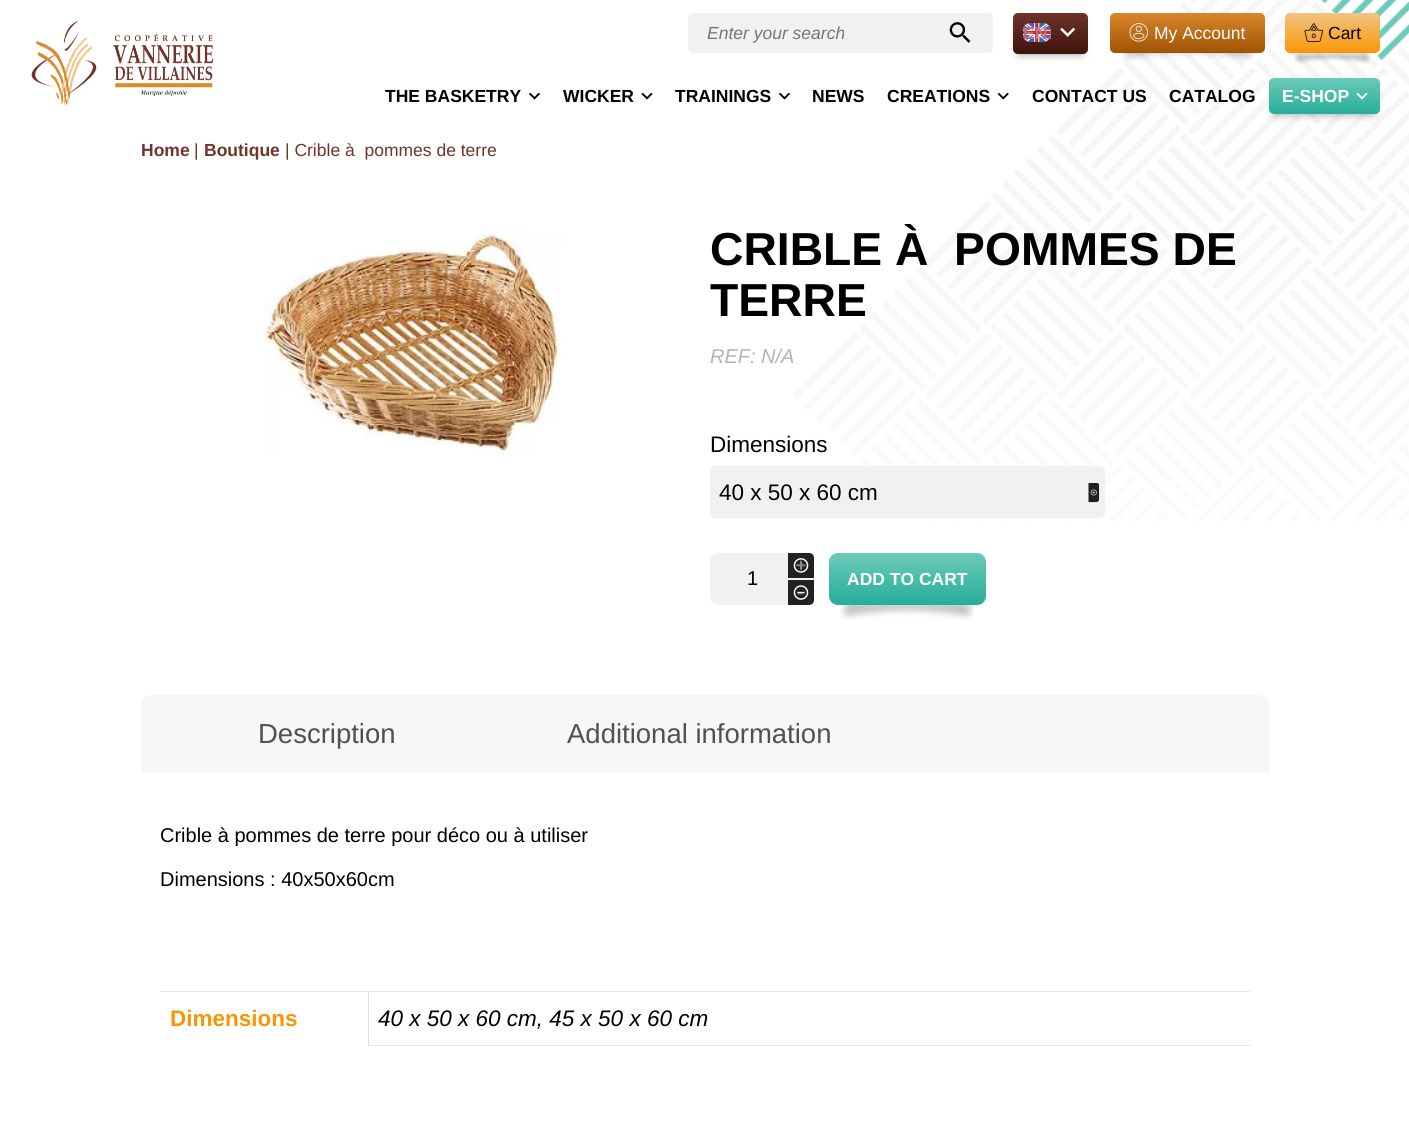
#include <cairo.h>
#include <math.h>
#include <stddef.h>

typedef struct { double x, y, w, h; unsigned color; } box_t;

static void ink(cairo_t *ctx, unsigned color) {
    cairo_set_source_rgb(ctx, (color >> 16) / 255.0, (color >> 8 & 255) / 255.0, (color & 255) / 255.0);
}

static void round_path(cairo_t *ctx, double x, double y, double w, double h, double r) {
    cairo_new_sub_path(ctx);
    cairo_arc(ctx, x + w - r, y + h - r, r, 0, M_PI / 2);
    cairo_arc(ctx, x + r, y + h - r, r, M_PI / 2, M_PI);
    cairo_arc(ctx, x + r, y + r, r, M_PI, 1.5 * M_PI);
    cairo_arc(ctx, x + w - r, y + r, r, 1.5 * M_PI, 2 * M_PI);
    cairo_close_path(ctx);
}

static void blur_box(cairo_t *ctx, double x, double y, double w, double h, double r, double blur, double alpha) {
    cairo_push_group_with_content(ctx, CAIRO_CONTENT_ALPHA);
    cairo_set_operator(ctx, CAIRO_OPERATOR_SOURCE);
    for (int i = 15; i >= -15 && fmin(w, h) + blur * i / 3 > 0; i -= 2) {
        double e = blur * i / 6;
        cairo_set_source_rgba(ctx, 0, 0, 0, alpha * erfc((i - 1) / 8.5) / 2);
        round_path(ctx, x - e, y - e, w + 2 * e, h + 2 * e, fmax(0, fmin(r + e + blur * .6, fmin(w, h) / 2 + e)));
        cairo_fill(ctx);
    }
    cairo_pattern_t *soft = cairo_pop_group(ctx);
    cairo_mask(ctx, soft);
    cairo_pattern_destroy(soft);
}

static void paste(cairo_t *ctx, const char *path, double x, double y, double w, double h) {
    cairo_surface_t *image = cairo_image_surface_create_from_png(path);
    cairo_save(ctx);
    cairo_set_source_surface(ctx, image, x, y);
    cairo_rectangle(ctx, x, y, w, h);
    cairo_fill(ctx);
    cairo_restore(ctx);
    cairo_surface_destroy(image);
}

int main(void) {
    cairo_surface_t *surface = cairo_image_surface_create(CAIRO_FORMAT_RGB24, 1409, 1137);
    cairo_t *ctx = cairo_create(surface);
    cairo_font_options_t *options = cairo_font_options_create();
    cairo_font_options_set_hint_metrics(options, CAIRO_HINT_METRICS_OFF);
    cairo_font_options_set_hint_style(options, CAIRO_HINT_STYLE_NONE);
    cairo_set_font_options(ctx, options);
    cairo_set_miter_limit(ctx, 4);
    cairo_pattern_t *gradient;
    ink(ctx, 0xFFFFFF);
    cairo_paint(ctx);
    paste(ctx, "media/1.png", 794, 126, 615, 395);
    paste(ctx, "media/2.png", 1061, 0, 348, 126);
    paste(ctx, "media/3.png", 31, 21, 182, 84);
    ink(ctx, 0xF1F1F1);
    round_path(ctx, 688, 13, 305, 40, 5);
    cairo_fill(ctx);
    cairo_select_font_face(ctx, "Liberation Sans", CAIRO_FONT_SLANT_ITALIC, CAIRO_FONT_WEIGHT_NORMAL);
    cairo_set_font_size(ctx, 17.5);
    ink(ctx, 0x757575);
    cairo_move_to(ctx, 707, 39);
    cairo_show_text(ctx, "Enter your search");
    paste(ctx, "media/4.png", 949, 22, 22, 21);
    ink(ctx, 0x000000);
    blur_box(ctx, 1019, 25, 62, 29, 0, 4.5, 0.4);
    gradient = cairo_pattern_create_linear(1050, 12, 1050, 54);
    cairo_pattern_add_color_stop_rgba(gradient, 0, 0.439, 0.204, 0.165, 1);
    cairo_pattern_add_color_stop_rgba(gradient, 1, 0.243, 0.071, 0.043, 1);
    cairo_set_source(ctx, gradient);
    cairo_pattern_destroy(gradient);
    round_path(ctx, 1013, 13, 75, 41, 5);
    cairo_fill(ctx);
    paste(ctx, "media/5.png", 1023, 23, 28, 19);
    cairo_select_font_face(ctx, "Liberation Sans", CAIRO_FONT_SLANT_NORMAL, CAIRO_FONT_WEIGHT_BOLD);
    ink(ctx, 0xB97187);
    cairo_move_to(ctx, 1023, 39);
    cairo_show_text(ctx, "EN.");
    paste(ctx, "media/6.png", 1060, 28, 15, 9);
    gradient = cairo_pattern_create_linear(1188, 12, 1188, 53);
    cairo_pattern_add_color_stop_rgba(gradient, 0, 0.855, 0.529, 0.176, 1);
    cairo_pattern_add_color_stop_rgba(gradient, 1, 0.631, 0.329, 0.012, 1);
    cairo_set_source(ctx, gradient);
    cairo_pattern_destroy(gradient);
    round_path(ctx, 1110, 13, 155, 40, 5);
    cairo_fill(ctx);
    paste(ctx, "media/7.png", 1129, 23, 19, 19);
    cairo_select_font_face(ctx, "Liberation Sans", CAIRO_FONT_SLANT_NORMAL, CAIRO_FONT_WEIGHT_NORMAL);
    ink(ctx, 0xFFFFFF);
    cairo_move_to(ctx, 1154, 39);
    cairo_show_text(ctx, "My Account");
    paste(ctx, "media/8.png", 1122, 52, 131, 9);
    gradient = cairo_pattern_create_linear(1333, 12, 1333, 53);
    cairo_pattern_add_color_stop_rgba(gradient, 0, 0.945, 0.776, 0.529, 1);
    cairo_pattern_add_color_stop_rgba(gradient, 1, 0.98, 0.588, 0.016, 1);
    cairo_set_source(ctx, gradient);
    cairo_pattern_destroy(gradient);
    round_path(ctx, 1285, 13, 95, 40, 5);
    cairo_fill(ctx);
    paste(ctx, "media/9.png", 1304, 23, 19, 19);
    ink(ctx, 0x000000);
    cairo_move_to(ctx, 1328, 39);
    cairo_show_text(ctx, "Cart");
    paste(ctx, "media/10.png", 1294, 52, 77, 12);
    cairo_select_font_face(ctx, "Liberation Sans", CAIRO_FONT_SLANT_NORMAL, CAIRO_FONT_WEIGHT_BOLD);
    cairo_move_to(ctx, 385, 102);
    cairo_show_text(ctx, "THE BASKETRY");
    paste(ctx, "media/11.png", 529, 93, 11, 7);
    cairo_move_to(ctx, 563, 102);
    cairo_show_text(ctx, "WICKER");
    paste(ctx, "media/12.png", 641, 93, 12, 7);
    cairo_move_to(ctx, 675, 102);
    cairo_show_text(ctx, "TRAININGS");
    paste(ctx, "media/11.png", 779, 93, 11, 7);
    cairo_move_to(ctx, 812, 102);
    cairo_show_text(ctx, "NEWS");
    cairo_move_to(ctx, 887, 102);
    cairo_show_text(ctx, "CREATIONS");
    paste(ctx, "media/13.png", 998, 93, 11, 7);
    cairo_move_to(ctx, 1032, 102);
    cairo_show_text(ctx, "CONTACT US");
    cairo_move_to(ctx, 1169, 102);
    cairo_show_text(ctx, "CATALOG");
    ink(ctx, 0x000000);
    blur_box(ctx, 1275, 90, 99, 24, 0, 4.5, 0.4);
    gradient = cairo_pattern_create_linear(1324, 77, 1324, 114);
    cairo_pattern_add_color_stop_rgba(gradient, 0, 0.427, 0.792, 0.733, 1);
    cairo_pattern_add_color_stop_rgba(gradient, 1, 0.149, 0.682, 0.596, 1);
    cairo_set_source(ctx, gradient);
    cairo_pattern_destroy(gradient);
    round_path(ctx, 1269, 78, 111, 36, 5);
    cairo_fill(ctx);
    ink(ctx, 0xFFFFFF);
    cairo_move_to(ctx, 1282, 102);
    cairo_show_text(ctx, "E-SHOP");
    paste(ctx, "media/14.png", 1356, 93, 12, 7);
    ink(ctx, 0x70342A);
    cairo_move_to(ctx, 141, 156);
    cairo_show_text(ctx, "Home");
    cairo_select_font_face(ctx, "Liberation Sans", CAIRO_FONT_SLANT_NORMAL, CAIRO_FONT_WEIGHT_NORMAL);
    cairo_move_to(ctx, 194, 156);
    cairo_show_text(ctx, "|");
    cairo_select_font_face(ctx, "Liberation Sans", CAIRO_FONT_SLANT_NORMAL, CAIRO_FONT_WEIGHT_BOLD);
    cairo_move_to(ctx, 204, 156);
    cairo_show_text(ctx, "Boutique");
    cairo_select_font_face(ctx, "Liberation Sans", CAIRO_FONT_SLANT_NORMAL, CAIRO_FONT_WEIGHT_NORMAL);
    cairo_move_to(ctx, 285, 156);
    cairo_show_text(ctx, "| Crible à  pommes de terre");
    paste(ctx, "media/15.png", 265, 234, 298, 221);
    cairo_select_font_face(ctx, "Liberation Sans", CAIRO_FONT_SLANT_NORMAL, CAIRO_FONT_WEIGHT_BOLD);
    cairo_set_font_size(ctx, 46.25);
    ink(ctx, 0x000000);
    cairo_move_to(ctx, 710, 265);
    cairo_show_text(ctx, "CRIBLE À  POMMES DE");
    cairo_move_to(ctx, 710, 316);
    cairo_show_text(ctx, "TERRE");
    cairo_select_font_face(ctx, "Liberation Sans", CAIRO_FONT_SLANT_ITALIC, CAIRO_FONT_WEIGHT_NORMAL);
    cairo_set_font_size(ctx, 20);
    ink(ctx, 0xB3B3B3);
    cairo_move_to(ctx, 710, 363);
    cairo_show_text(ctx, "REF: N/A");
    cairo_select_font_face(ctx, "Liberation Sans", CAIRO_FONT_SLANT_NORMAL, CAIRO_FONT_WEIGHT_NORMAL);
    cairo_set_font_size(ctx, 22.5);
    ink(ctx, 0x000000);
    cairo_move_to(ctx, 710, 452);
    cairo_show_text(ctx, "Dimensions");
    ink(ctx, 0xF1F1F1);
    round_path(ctx, 710, 466, 395, 52, 6);
    cairo_fill(ctx);
    paste(ctx, "media/16.png", 1088, 483, 12, 20);
    round_path(ctx, 710.5, 466.5, 394, 51, 5.5);
    cairo_set_line_width(ctx, 1);
    cairo_stroke(ctx);
    ink(ctx, 0x000000);
    cairo_move_to(ctx, 719, 500);
    cairo_show_text(ctx, "40 x 50 x 60 cm");
    ink(ctx, 0xF1F1F1);
    round_path(ctx, 710.5, 553.5, 103, 51, 8.5);
    cairo_fill_preserve(ctx);
    cairo_stroke(ctx);
    ink(ctx, 0x212121);
    cairo_new_path(ctx);
    cairo_move_to(ctx, 788, 553);
    cairo_line_to(ctx, 809, 553);
    cairo_curve_to(ctx, 812, 553, 814, 555, 814, 558);
    cairo_line_to(ctx, 814, 578);
    cairo_line_to(ctx, 788, 578);
    cairo_close_path(ctx);
    cairo_fill(ctx);
    paste(ctx, "media/17.png", 793, 558, 16, 15);
    cairo_set_font_size(ctx, 20);
    ink(ctx, 0x7F7F7F);
    cairo_move_to(ctx, 795, 572);
    cairo_show_text(ctx, "+");
    ink(ctx, 0x000000);
    cairo_move_to(ctx, 747, 585);
    cairo_show_text(ctx, "1");
    gradient = cairo_pattern_create_linear(908, 553, 908, 605);
    cairo_pattern_add_color_stop_rgba(gradient, 0, 0.427, 0.792, 0.733, 1);
    cairo_pattern_add_color_stop_rgba(gradient, 1, 0.149, 0.682, 0.596, 1);
    cairo_set_source(ctx, gradient);
    cairo_pattern_destroy(gradient);
    round_path(ctx, 829, 553, 157, 52, 9);
    cairo_fill(ctx);
    cairo_select_font_face(ctx, "Liberation Sans", CAIRO_FONT_SLANT_NORMAL, CAIRO_FONT_WEIGHT_BOLD);
    cairo_set_font_size(ctx, 17.5);
    ink(ctx, 0xFFFFFF);
    cairo_move_to(ctx, 847, 585);
    cairo_show_text(ctx, "ADD TO CART");
    paste(ctx, "media/18.png", 840, 605, 135, 15);
    ink(ctx, 0x212121);
    cairo_new_path(ctx);
    cairo_move_to(ctx, 788, 580);
    cairo_line_to(ctx, 814, 580);
    cairo_line_to(ctx, 814, 600);
    cairo_curve_to(ctx, 814, 603, 812, 605, 809, 605);
    cairo_line_to(ctx, 788, 605);
    cairo_close_path(ctx);
    cairo_fill(ctx);
    paste(ctx, "media/19.png", 793, 585, 16, 15);
    cairo_select_font_face(ctx, "Liberation Sans", CAIRO_FONT_SLANT_NORMAL, CAIRO_FONT_WEIGHT_NORMAL);
    cairo_set_font_size(ctx, 20);
    ink(ctx, 0x7F7F7F);
    cairo_move_to(ctx, 797, 599);
    cairo_show_text(ctx, "-");
    ink(ctx, 0xF7F7F7);
    cairo_new_path(ctx);
    cairo_move_to(ctx, 151, 695);
    cairo_line_to(ctx, 1259, 695);
    cairo_curve_to(ctx, 1264.5, 695, 1269, 699.5, 1269, 705);
    cairo_line_to(ctx, 1269, 773);
    cairo_line_to(ctx, 141, 773);
    cairo_line_to(ctx, 141, 705);
    cairo_curve_to(ctx, 141, 699.5, 145.5, 695, 151, 695);
    cairo_close_path(ctx);
    cairo_fill(ctx);
    cairo_set_font_size(ctx, 27.5);
    ink(ctx, 0x515151);
    cairo_move_to(ctx, 258, 743);
    cairo_show_text(ctx, "Description");
    cairo_move_to(ctx, 567, 743);
    cairo_show_text(ctx, "Additional information");
    cairo_set_font_size(ctx, 20);
    ink(ctx, 0x000000);
    cairo_move_to(ctx, 160, 842);
    cairo_show_text(ctx, "Crible à pommes de terre pour déco ou à utiliser");
    cairo_move_to(ctx, 160, 886);
    cairo_show_text(ctx, "Dimensions : 40x50x60cm");
    {
        static const box_t items[] = {
            {160, 991, 1090, 1, 0xE6E6E6},
            {368, 1045, 883, 1, 0xE6E6E6},
            {368, 991, 1, 55, 0xDCDCDC},
        };
        for (size_t i = 0; i < sizeof items / sizeof *items; i++) {
            ink(ctx, items[i].color);
            cairo_rectangle(ctx, items[i].x, items[i].y, items[i].w, items[i].h);
            cairo_fill(ctx);
        }
    }
    cairo_select_font_face(ctx, "Liberation Sans", CAIRO_FONT_SLANT_NORMAL, CAIRO_FONT_WEIGHT_BOLD);
    cairo_set_font_size(ctx, 22.5);
    ink(ctx, 0xFA9604);
    cairo_move_to(ctx, 170, 1026);
    cairo_show_text(ctx, "Dimensions");
    cairo_select_font_face(ctx, "Liberation Sans", CAIRO_FONT_SLANT_ITALIC, CAIRO_FONT_WEIGHT_NORMAL);
    ink(ctx, 0x000000);
    cairo_move_to(ctx, 378, 1026);
    cairo_show_text(ctx, "40 x 50 x 60 cm, 45 x 50 x 60 cm");
    cairo_surface_write_to_png(surface, "image.png");
    cairo_font_options_destroy(options);
    cairo_destroy(ctx);
    cairo_surface_destroy(surface);
    return 0;
}
